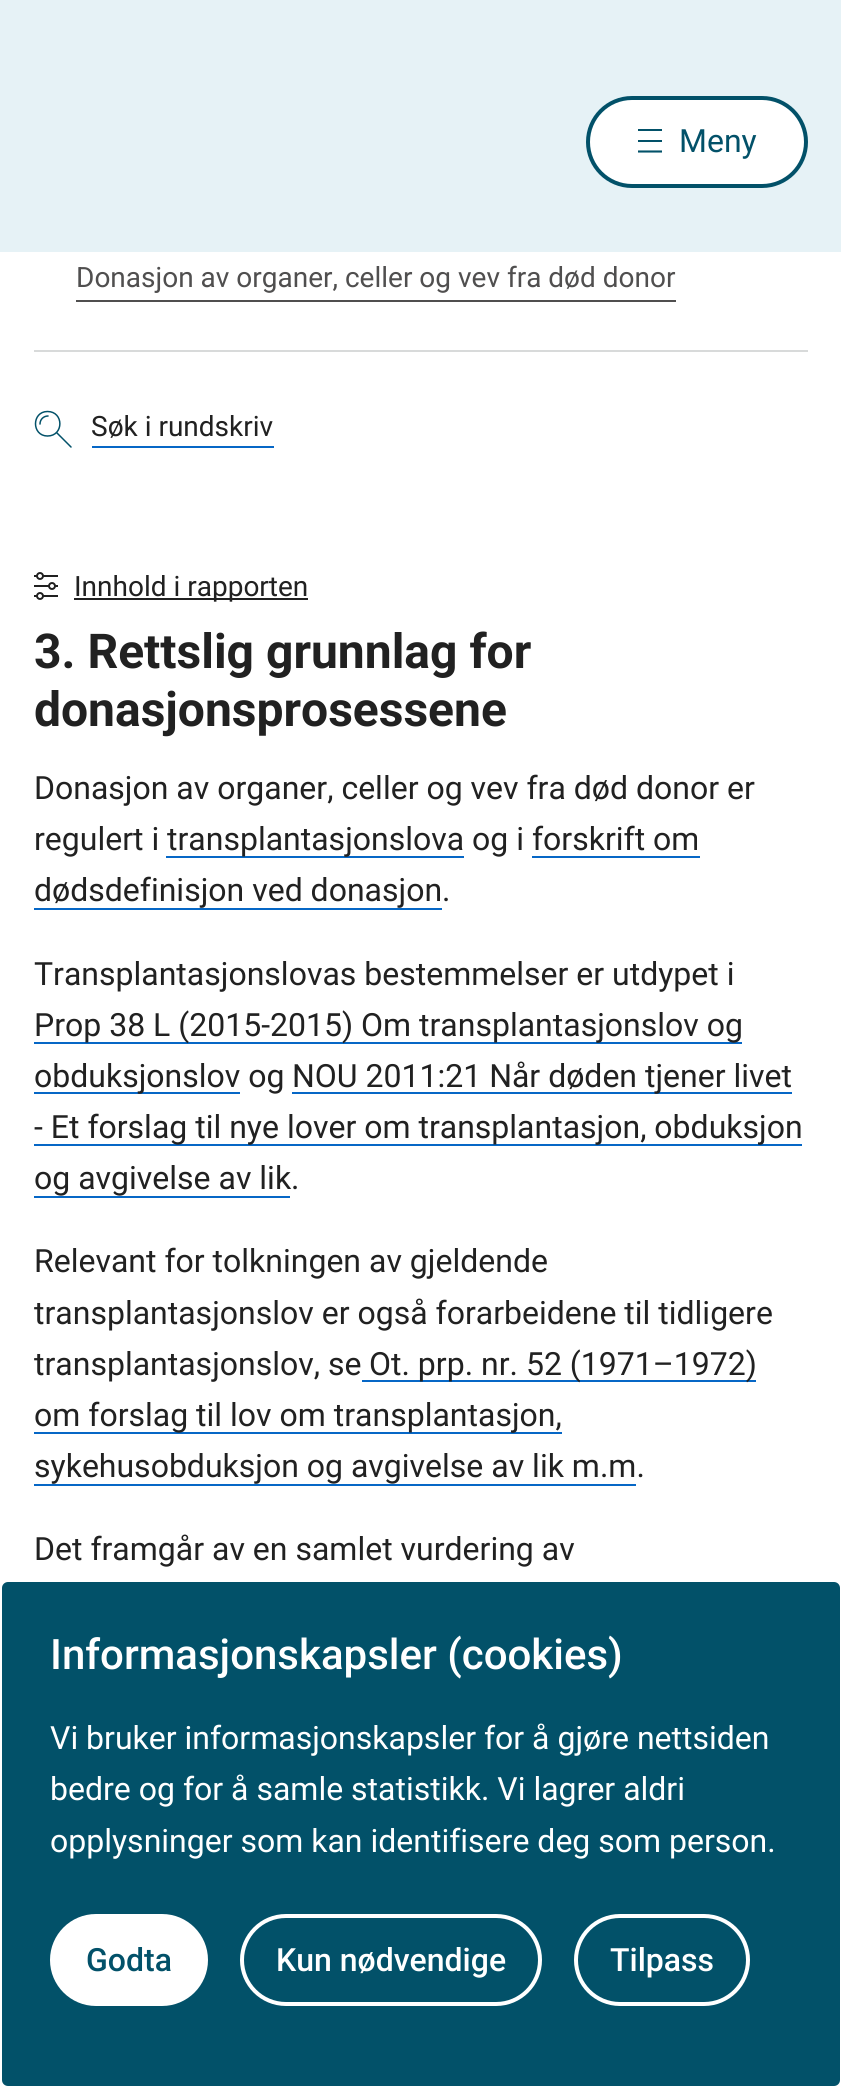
#include <cairo.h>
#include <math.h>
#include <stddef.h>

typedef struct { double x, y; const char *s; } line_t;

static void ink(cairo_t *ctx, unsigned color) {
    cairo_set_source_rgb(ctx, (color >> 16) / 255.0, (color >> 8 & 255) / 255.0, (color & 255) / 255.0);
}

static void round_path(cairo_t *ctx, double x, double y, double w, double h, double r) {
    cairo_new_sub_path(ctx);
    cairo_arc(ctx, x + w - r, y + h - r, r, 0, M_PI / 2);
    cairo_arc(ctx, x + r, y + h - r, r, M_PI / 2, M_PI);
    cairo_arc(ctx, x + r, y + r, r, M_PI, 1.5 * M_PI);
    cairo_arc(ctx, x + w - r, y + r, r, 1.5 * M_PI, 2 * M_PI);
    cairo_close_path(ctx);
}

static void paste(cairo_t *ctx, const char *path, double x, double y, double w, double h) {
    cairo_surface_t *image = cairo_image_surface_create_from_png(path);
    cairo_save(ctx);
    cairo_set_source_surface(ctx, image, x, y);
    cairo_rectangle(ctx, x, y, w, h);
    cairo_fill(ctx);
    cairo_restore(ctx);
    cairo_surface_destroy(image);
}

int main(void) {
    cairo_surface_t *surface = cairo_image_surface_create(CAIRO_FORMAT_RGB24, 841, 2087);
    cairo_t *ctx = cairo_create(surface);
    cairo_font_options_t *options = cairo_font_options_create();
    cairo_font_options_set_hint_metrics(options, CAIRO_HINT_METRICS_OFF);
    cairo_font_options_set_hint_style(options, CAIRO_HINT_STYLE_NONE);
    cairo_set_font_options(ctx, options);
    cairo_set_miter_limit(ctx, 4);
    ink(ctx, 0xFFFFFF);
    cairo_paint(ctx);
    ink(ctx, 0xE6F2F6);
    cairo_rectangle(ctx, 0, 0, 841, 252);
    cairo_fill(ctx);
    ink(ctx, 0xFFFFFF);
    round_path(ctx, 588, 98, 218, 88, 44);
    cairo_fill_preserve(ctx);
    ink(ctx, 0x025169);
    cairo_set_line_width(ctx, 4);
    cairo_stroke(ctx);
    cairo_rectangle(ctx, 638, 129, 24, 2);
    cairo_fill(ctx);
    cairo_rectangle(ctx, 638, 140, 24, 2);
    cairo_fill(ctx);
    cairo_save(ctx);
    cairo_rectangle(ctx, 638, 128, 24, 26);
    cairo_clip(ctx);
    cairo_new_path(ctx);
    cairo_move_to(ctx, 638, 151.5);
    cairo_line_to(ctx, 663.5, 151.5);
    cairo_set_line_width(ctx, 2.1);
    cairo_stroke(ctx);
    cairo_restore(ctx);
    cairo_select_font_face(ctx, "Roboto", CAIRO_FONT_SLANT_NORMAL, CAIRO_FONT_WEIGHT_NORMAL);
    cairo_set_font_size(ctx, 32);
    cairo_move_to(ctx, 679, 152);
    cairo_show_text(ctx, "Meny");
    ink(ctx, 0xD8DADA);
    cairo_rectangle(ctx, 34, 350, 774, 2);
    cairo_fill(ctx);
    ink(ctx, 0x504F4F);
    cairo_rectangle(ctx, 76, 300, 600, 2);
    cairo_fill(ctx);
    cairo_set_font_size(ctx, 28);
    cairo_move_to(ctx, 76, 287);
    cairo_show_text(ctx, "Donasjon av organer, celler og vev fra død donor");
    cairo_new_path(ctx);
    cairo_move_to(ctx, 47.5, 436);
    cairo_curve_to(ctx, 64, 436, 64, 411.5, 47.5, 411.5);
    cairo_curve_to(ctx, 31.5, 411.5, 31.5, 436, 47.5, 436);
    cairo_close_path(ctx);
    cairo_move_to(ctx, 56.5, 432.5);
    cairo_line_to(ctx, 71, 447);
    cairo_move_to(ctx, 48, 416);
    cairo_curve_to(ctx, 43.5, 416, 40, 419.5, 40, 424);
    ink(ctx, 0x025169);
    cairo_set_line_width(ctx, 1.5);
    cairo_set_line_cap(ctx, CAIRO_LINE_CAP_ROUND);
    cairo_set_line_join(ctx, CAIRO_LINE_JOIN_ROUND);
    cairo_stroke(ctx);
    ink(ctx, 0x212121);
    cairo_move_to(ctx, 91, 436);
    cairo_show_text(ctx, "Søk i rundskriv");
    ink(ctx, 0x0667C6);
    cairo_rectangle(ctx, 92, 446, 182, 2);
    cairo_fill(ctx);
    paste(ctx, "media/1.png", 34, 572, 24, 28);
    ink(ctx, 0x212121);
    cairo_rectangle(ctx, 74, 598, 234, 2);
    cairo_fill(ctx);
    cairo_move_to(ctx, 74, 596);
    cairo_show_text(ctx, "Innhold i rapporten");
    cairo_select_font_face(ctx, "Roboto", CAIRO_FONT_SLANT_NORMAL, CAIRO_FONT_WEIGHT_BOLD);
    cairo_set_font_size(ctx, 48);
    cairo_move_to(ctx, 34, 668);
    cairo_show_text(ctx, "3. Rettslig grunnlag for");
    cairo_move_to(ctx, 34, 726);
    cairo_show_text(ctx, "donasjonsprosessene");
    cairo_select_font_face(ctx, "Roboto", CAIRO_FONT_SLANT_NORMAL, CAIRO_FONT_WEIGHT_NORMAL);
    cairo_set_font_size(ctx, 32);
    cairo_move_to(ctx, 34, 799);
    cairo_show_text(ctx, "Donasjon av organer, celler og vev fra død donor er");
    cairo_move_to(ctx, 34, 850);
    cairo_show_text(ctx, "regulert i");
    ink(ctx, 0x0667C6);
    cairo_rectangle(ctx, 166, 856, 298, 2);
    cairo_fill(ctx);
    ink(ctx, 0x212121);
    cairo_move_to(ctx, 167, 850);
    cairo_show_text(ctx, "transplantasjonslova og i forskrift om");
    cairo_move_to(ctx, 34, 901);
    cairo_show_text(ctx, "dødsdefinisjon ved donasjon.");
    ink(ctx, 0x0667C6);
    cairo_rectangle(ctx, 532, 856, 168, 2);
    cairo_fill(ctx);
    cairo_rectangle(ctx, 34, 908, 408, 2);
    cairo_fill(ctx);
    ink(ctx, 0x212121);
    cairo_move_to(ctx, 34, 985);
    cairo_show_text(ctx, "Transplantasjonslovas bestemmelser er utdypet i");
    ink(ctx, 0x0667C6);
    cairo_rectangle(ctx, 34, 1042, 708, 2);
    cairo_fill(ctx);
    ink(ctx, 0x212121);
    cairo_move_to(ctx, 34, 1036);
    cairo_show_text(ctx, "Prop 38 L (2015-2015) Om transplantasjonslov og");
    ink(ctx, 0x0667C6);
    cairo_rectangle(ctx, 34, 1092, 206, 2);
    cairo_fill(ctx);
    ink(ctx, 0x212121);
    cairo_move_to(ctx, 34, 1087);
    cairo_show_text(ctx, "obduksjonslov og");
    ink(ctx, 0x0667C6);
    cairo_rectangle(ctx, 292, 1092, 500, 2);
    cairo_fill(ctx);
    ink(ctx, 0x212121);
    cairo_move_to(ctx, 292, 1087);
    cairo_show_text(ctx, "NOU 2011:21 Når døden tjener livet");
    ink(ctx, 0x0667C6);
    cairo_rectangle(ctx, 34, 1144, 768, 2);
    cairo_fill(ctx);
    ink(ctx, 0x212121);
    cairo_move_to(ctx, 34, 1138);
    cairo_show_text(ctx, "- Et forslag til nye lover om transplantasjon, obduksjon");
    cairo_move_to(ctx, 34, 1189);
    cairo_show_text(ctx, "og avgivelse av lik.");
    ink(ctx, 0x0667C6);
    cairo_rectangle(ctx, 34, 1196, 256, 2);
    cairo_fill(ctx);
    ink(ctx, 0x212121);
    cairo_move_to(ctx, 34, 1272);
    cairo_show_text(ctx, "Relevant for tolkningen av gjeldende");
    cairo_save(ctx);
    cairo_rectangle(ctx, 34, 352, 774, 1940);
    cairo_clip(ctx);
    cairo_move_to(ctx, 34, 1324);
    cairo_show_text(ctx, "transplantasjonslov er også forarbeidene til tidligere");
    cairo_move_to(ctx, 34, 1375);
    cairo_show_text(ctx, "transplantasjonslov, se");
    cairo_restore(ctx);
    ink(ctx, 0x0667C6);
    cairo_rectangle(ctx, 362, 1380, 394, 2);
    cairo_fill(ctx);
    ink(ctx, 0x212121);
    cairo_move_to(ctx, 369, 1375);
    cairo_show_text(ctx, "Ot. prp. nr. 52 (1971–1972)");
    ink(ctx, 0x0667C6);
    cairo_rectangle(ctx, 34, 1432, 528, 2);
    cairo_fill(ctx);
    ink(ctx, 0x212121);
    cairo_move_to(ctx, 34, 1426);
    cairo_show_text(ctx, "om forslag til lov om transplantasjon,");
    cairo_move_to(ctx, 34, 1477);
    cairo_show_text(ctx, "sykehusobduksjon og avgivelse av lik m.m.");
    ink(ctx, 0x0667C6);
    cairo_rectangle(ctx, 34, 1484, 602, 2);
    cairo_fill(ctx);
    ink(ctx, 0x212121);
    cairo_move_to(ctx, 34, 1560);
    cairo_show_text(ctx, "Det framgår av en samlet vurdering av");
    ink(ctx, 0x025169);
    round_path(ctx, 1, 1581, 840, 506, 7);
    cairo_fill_preserve(ctx);
    ink(ctx, 0xFFFFFF);
    cairo_set_line_width(ctx, 2);
    cairo_set_line_cap(ctx, CAIRO_LINE_CAP_BUTT);
    cairo_set_line_join(ctx, CAIRO_LINE_JOIN_MITER);
    cairo_stroke(ctx);
    cairo_select_font_face(ctx, "Roboto Medium", CAIRO_FONT_SLANT_NORMAL, CAIRO_FONT_WEIGHT_NORMAL);
    cairo_set_font_size(ctx, 42);
    cairo_move_to(ctx, 50, 1669);
    cairo_show_text(ctx, "Informasjonskapsler (cookies)");
    cairo_select_font_face(ctx, "Roboto", CAIRO_FONT_SLANT_NORMAL, CAIRO_FONT_WEIGHT_NORMAL);
    cairo_set_font_size(ctx, 32);
    {
        static const line_t items[] = {
            {50, 1749, "Vi bruker informasjonskapsler for å gjøre nettsiden"},
            {50, 1800, "bedre og for å samle statistikk. Vi lagrer aldri"},
            {50, 1852, "opplysninger som kan identifisere deg som person."},
        };
        for (size_t i = 0; i < sizeof items / sizeof *items; i++) {
            cairo_move_to(ctx, items[i].x, items[i].y);
            cairo_show_text(ctx, items[i].s);
        }
    }
    round_path(ctx, 50, 1914, 158, 92, 46);
    cairo_fill(ctx);
    cairo_select_font_face(ctx, "Roboto Medium", CAIRO_FONT_SLANT_NORMAL, CAIRO_FONT_WEIGHT_NORMAL);
    ink(ctx, 0x025169);
    cairo_move_to(ctx, 86, 1971);
    cairo_show_text(ctx, "Godta");
    round_path(ctx, 242, 1916, 298, 88, 44);
    ink(ctx, 0xFFFFFF);
    cairo_set_line_width(ctx, 4);
    cairo_stroke(ctx);
    cairo_move_to(ctx, 276, 1971);
    cairo_show_text(ctx, "Kun nødvendige");
    round_path(ctx, 576, 1916, 172, 88, 44);
    cairo_stroke(ctx);
    cairo_move_to(ctx, 610, 1971);
    cairo_show_text(ctx, "Tilpass");
    cairo_surface_write_to_png(surface, "image.png");
    cairo_font_options_destroy(options);
    cairo_destroy(ctx);
    cairo_surface_destroy(surface);
    return 0;
}
